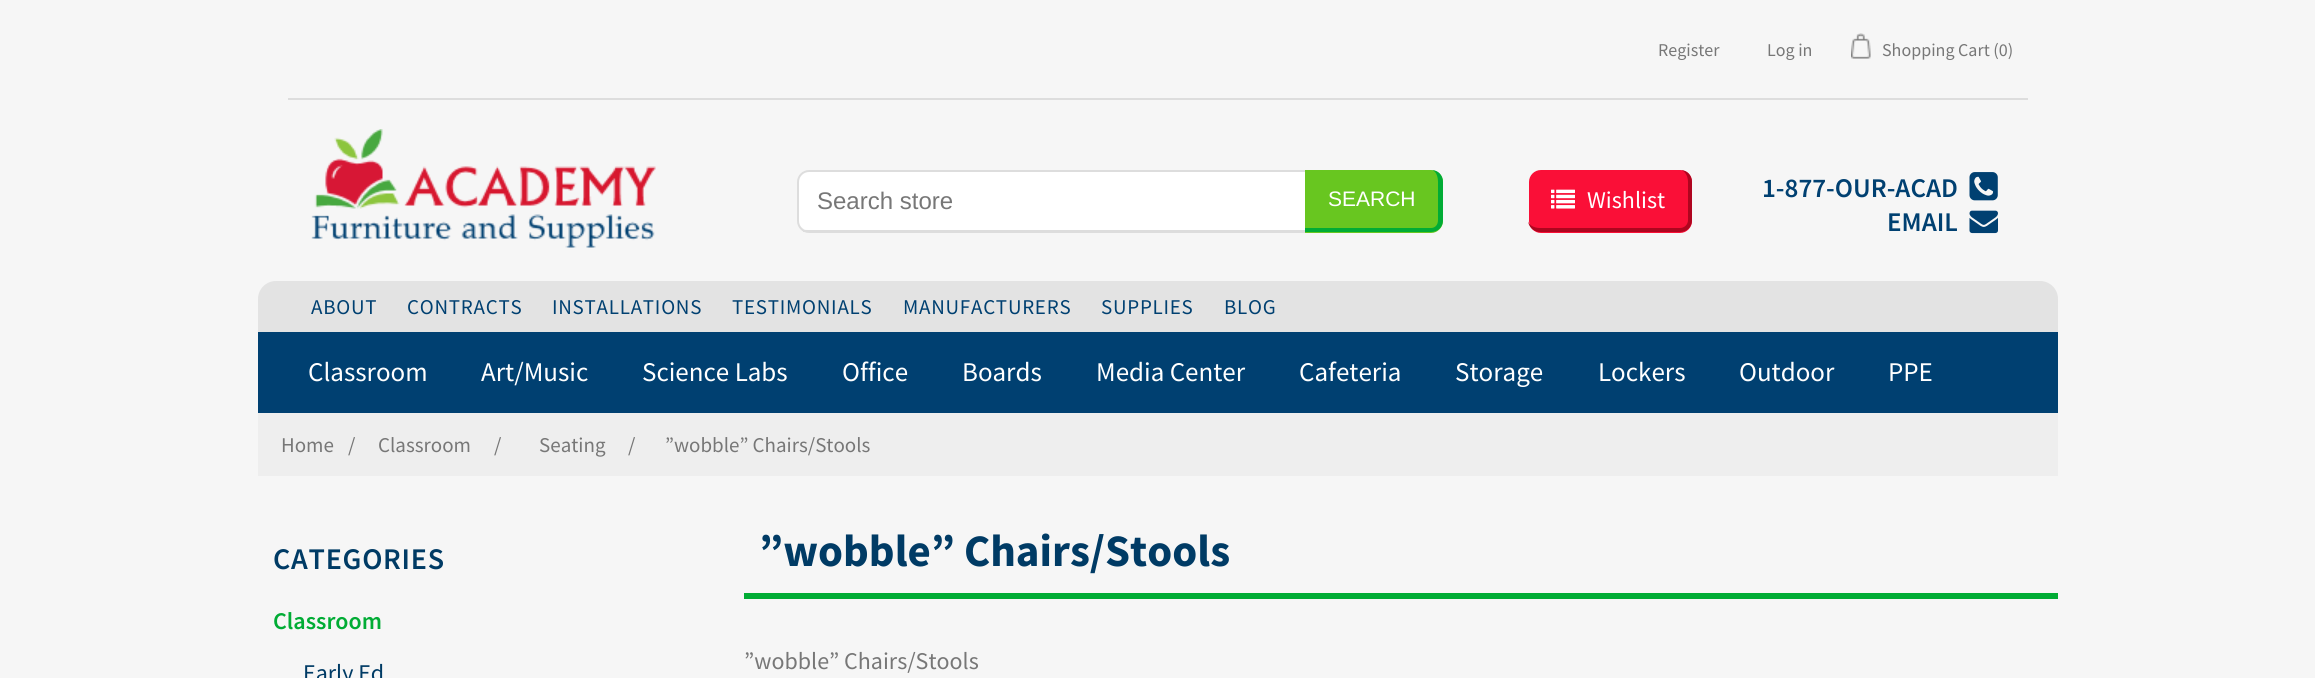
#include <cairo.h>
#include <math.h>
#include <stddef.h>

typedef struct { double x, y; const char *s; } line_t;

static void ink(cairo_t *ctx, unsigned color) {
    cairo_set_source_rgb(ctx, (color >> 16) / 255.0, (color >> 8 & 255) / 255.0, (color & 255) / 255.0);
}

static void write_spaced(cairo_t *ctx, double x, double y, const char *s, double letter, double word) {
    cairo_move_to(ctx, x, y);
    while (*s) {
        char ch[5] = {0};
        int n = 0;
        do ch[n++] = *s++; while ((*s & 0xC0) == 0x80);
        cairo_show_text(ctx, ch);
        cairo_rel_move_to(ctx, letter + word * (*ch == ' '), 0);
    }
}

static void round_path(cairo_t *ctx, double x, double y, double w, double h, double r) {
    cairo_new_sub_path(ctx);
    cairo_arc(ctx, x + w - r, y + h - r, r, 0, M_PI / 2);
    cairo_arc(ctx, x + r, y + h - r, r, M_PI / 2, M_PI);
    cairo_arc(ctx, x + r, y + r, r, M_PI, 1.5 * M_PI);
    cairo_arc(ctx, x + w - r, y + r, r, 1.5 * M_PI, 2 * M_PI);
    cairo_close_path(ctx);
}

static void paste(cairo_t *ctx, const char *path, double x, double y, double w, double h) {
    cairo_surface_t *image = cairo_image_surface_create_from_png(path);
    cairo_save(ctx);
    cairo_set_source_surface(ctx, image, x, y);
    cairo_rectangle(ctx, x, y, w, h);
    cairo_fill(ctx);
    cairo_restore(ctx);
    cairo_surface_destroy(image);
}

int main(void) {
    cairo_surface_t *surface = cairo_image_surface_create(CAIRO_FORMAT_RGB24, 2315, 678);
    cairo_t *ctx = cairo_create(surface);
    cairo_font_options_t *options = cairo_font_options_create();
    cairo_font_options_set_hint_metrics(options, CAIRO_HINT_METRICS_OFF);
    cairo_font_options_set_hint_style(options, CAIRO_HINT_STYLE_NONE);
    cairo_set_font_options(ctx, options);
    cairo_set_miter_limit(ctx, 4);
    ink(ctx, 0xF6F6F6);
    cairo_paint(ctx);
    ink(ctx, 0xDDDDDD);
    cairo_rectangle(ctx, 288, 98, 1740, 2);
    cairo_fill(ctx);
    cairo_select_font_face(ctx, "Source Sans Pro", CAIRO_FONT_SLANT_NORMAL, CAIRO_FONT_WEIGHT_NORMAL);
    cairo_set_font_size(ctx, 18);
    ink(ctx, 0x777777);
    cairo_move_to(ctx, 1658, 56);
    cairo_show_text(ctx, "Register");
    cairo_move_to(ctx, 1767, 56);
    cairo_show_text(ctx, "Log in");
    paste(ctx, "media/1.png", 1851, 33, 20, 26);
    cairo_move_to(ctx, 1882, 56);
    cairo_show_text(ctx, "Shopping Cart (0)");
    paste(ctx, "media/2.png", 311, 129, 345, 119);
    ink(ctx, 0xFFFFFF);
    cairo_new_path(ctx);
    cairo_move_to(ctx, 808, 171);
    cairo_line_to(ctx, 1305, 171);
    cairo_line_to(ctx, 1305, 230);
    cairo_line_to(ctx, 808, 230);
    cairo_curve_to(ctx, 803, 230, 798, 225, 798, 220);
    cairo_line_to(ctx, 798, 182);
    cairo_curve_to(ctx, 798, 176, 803, 171, 808, 171);
    cairo_close_path(ctx);
    cairo_fill(ctx);
    cairo_new_path(ctx);
    cairo_move_to(ctx, 809, 171);
    cairo_line_to(ctx, 1306, 171);
    cairo_line_to(ctx, 1306, 232);
    cairo_line_to(ctx, 809, 232);
    cairo_curve_to(ctx, 803, 232, 798, 227, 798, 221);
    cairo_line_to(ctx, 798, 182);
    cairo_curve_to(ctx, 798, 176, 803, 171, 809, 171);
    cairo_close_path(ctx);
    ink(ctx, 0xDDDDDD);
    cairo_stroke(ctx);
    cairo_rectangle(ctx, 803, 230, 504, 2);
    cairo_fill(ctx);
    cairo_select_font_face(ctx, "Liberation Sans", CAIRO_FONT_SLANT_NORMAL, CAIRO_FONT_WEIGHT_NORMAL);
    cairo_set_font_size(ctx, 24);
    ink(ctx, 0x777777);
    cairo_move_to(ctx, 817, 209);
    cairo_show_text(ctx, "Search store");
    ink(ctx, 0x68C620);
    cairo_new_path(ctx);
    cairo_move_to(ctx, 1305, 170);
    cairo_line_to(ctx, 1431, 170);
    cairo_curve_to(ctx, 1437.5, 170, 1443, 175.5, 1443, 182);
    cairo_line_to(ctx, 1443, 221);
    cairo_curve_to(ctx, 1443, 227.5, 1437.5, 233, 1431, 233);
    cairo_line_to(ctx, 1305, 233);
    cairo_close_path(ctx);
    cairo_fill(ctx);
    ink(ctx, 0x01AC35);
    cairo_set_fill_rule(ctx, CAIRO_FILL_RULE_EVEN_ODD);
    cairo_new_path(ctx);
    cairo_move_to(ctx, 1305, 170);
    cairo_line_to(ctx, 1431, 170);
    cairo_curve_to(ctx, 1438, 170, 1443, 175, 1443, 182);
    cairo_line_to(ctx, 1443, 220);
    cairo_curve_to(ctx, 1443, 227, 1438, 232, 1431, 232);
    cairo_line_to(ctx, 1305, 232);
    cairo_close_path(ctx);
    cairo_move_to(ctx, 1305, 170);
    cairo_line_to(ctx, 1431, 170);
    cairo_curve_to(ctx, 1435, 170, 1438, 175, 1438, 182);
    cairo_line_to(ctx, 1438, 220);
    cairo_curve_to(ctx, 1438, 225, 1435, 228, 1431, 228);
    cairo_line_to(ctx, 1305, 228);
    cairo_close_path(ctx);
    cairo_fill(ctx);
    cairo_set_font_size(ctx, 21);
    ink(ctx, 0xFFFFFF);
    cairo_move_to(ctx, 1328, 206);
    cairo_show_text(ctx, "SEARCH");
    ink(ctx, 0xFA0F37);
    round_path(ctx, 1529, 170, 163, 63, 12);
    cairo_fill(ctx);
    ink(ctx, 0xAF051F);
    cairo_new_path(ctx);
    cairo_move_to(ctx, 1540, 170);
    cairo_line_to(ctx, 1680, 170);
    cairo_curve_to(ctx, 1687, 170, 1692, 175, 1692, 182);
    cairo_line_to(ctx, 1692, 220);
    cairo_curve_to(ctx, 1692, 227, 1687, 232, 1680, 232);
    cairo_line_to(ctx, 1540, 232);
    cairo_curve_to(ctx, 1534, 232, 1528, 227, 1528, 220);
    cairo_line_to(ctx, 1528, 182);
    cairo_curve_to(ctx, 1528, 175, 1534, 170, 1540, 170);
    cairo_close_path(ctx);
    cairo_move_to(ctx, 1540, 170);
    cairo_line_to(ctx, 1680, 170);
    cairo_curve_to(ctx, 1684, 170, 1688, 175, 1688, 182);
    cairo_line_to(ctx, 1688, 220);
    cairo_curve_to(ctx, 1688, 225, 1684, 228, 1680, 228);
    cairo_line_to(ctx, 1540, 228);
    cairo_curve_to(ctx, 1534, 228, 1528, 225, 1528, 220);
    cairo_line_to(ctx, 1528, 182);
    cairo_curve_to(ctx, 1528, 175, 1534, 170, 1540, 170);
    cairo_close_path(ctx);
    cairo_fill(ctx);
    paste(ctx, "media/3.png", 1551, 189, 24, 20);
    cairo_select_font_face(ctx, "Source Sans Pro", CAIRO_FONT_SLANT_NORMAL, CAIRO_FONT_WEIGHT_NORMAL);
    cairo_set_font_size(ctx, 24);
    ink(ctx, 0xFFFFFF);
    cairo_move_to(ctx, 1587, 208);
    cairo_show_text(ctx, "Wishlist");
    cairo_select_font_face(ctx, "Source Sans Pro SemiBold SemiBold", CAIRO_FONT_SLANT_NORMAL, CAIRO_FONT_WEIGHT_NORMAL);
    cairo_set_font_size(ctx, 27);
    ink(ctx, 0x004071);
    cairo_move_to(ctx, 1762, 197);
    cairo_show_text(ctx, "1-877-OUR-ACAD");
    paste(ctx, "media/4.png", 1969, 172, 29, 29);
    cairo_move_to(ctx, 1887, 231);
    cairo_show_text(ctx, "EMAIL");
    paste(ctx, "media/5.png", 1969, 210, 29, 24);
    ink(ctx, 0xE3E3E3);
    cairo_new_path(ctx);
    cairo_move_to(ctx, 276, 281);
    cairo_line_to(ctx, 2040, 281);
    cairo_curve_to(ctx, 2050, 281, 2058, 289, 2058, 299);
    cairo_line_to(ctx, 2058, 332);
    cairo_line_to(ctx, 258, 332);
    cairo_line_to(ctx, 258, 299);
    cairo_curve_to(ctx, 258, 289, 266, 281, 276, 281);
    cairo_close_path(ctx);
    cairo_fill(ctx);
    cairo_select_font_face(ctx, "Source Sans Pro", CAIRO_FONT_SLANT_NORMAL, CAIRO_FONT_WEIGHT_NORMAL);
    cairo_set_font_size(ctx, 21);
    ink(ctx, 0x004071);
    {
        static const line_t items[] = {
            {311, 314, "ABOUT"},
            {407, 314, "CONTRACTS"},
            {552, 314, "INSTALLATIONS"},
            {732, 314, "TESTIMONIALS"},
            {903, 314, "MANUFACTURERS"},
            {1101, 314, "SUPPLIES"},
            {1224, 314, "BLOG"},
        };
        for (size_t i = 0; i < sizeof items / sizeof *items; i++) {
            write_spaced(ctx, items[i].x, items[i].y, items[i].s, 0.75, 0);
        }
    }
    cairo_rectangle(ctx, 258, 332, 1800, 81);
    cairo_fill(ctx);
    cairo_set_font_size(ctx, 27);
    ink(ctx, 0xFFFFFF);
    {
        static const line_t items[] = {
            {308, 381, "Classroom"},
            {481, 381, "Art/Music"},
            {642, 381, "Science Labs"},
            {842, 381, "Office"},
            {962, 381, "Boards"},
            {1096, 381, "Media Center"},
            {1299, 381, "Cafeteria"},
            {1455, 381, "Storage"},
            {1598, 381, "Lockers"},
            {1739, 381, "Outdoor"},
            {1888, 381, "PPE"},
        };
        for (size_t i = 0; i < sizeof items / sizeof *items; i++) {
            cairo_move_to(ctx, items[i].x, items[i].y);
            cairo_show_text(ctx, items[i].s);
        }
    }
    ink(ctx, 0xEEEEEE);
    cairo_rectangle(ctx, 258, 413, 1800, 63);
    cairo_fill(ctx);
    cairo_set_font_size(ctx, 21);
    ink(ctx, 0x777777);
    {
        static const line_t items[] = {
            {281, 452, "Home"},
            {348, 452, "/"},
            {378, 452, "Classroom"},
            {494, 452, "/"},
            {539, 452, "Seating"},
            {628, 452, "/"},
            {665, 452, "”wobble” Chairs/Stools"},
        };
        for (size_t i = 0; i < sizeof items / sizeof *items; i++) {
            cairo_move_to(ctx, items[i].x, items[i].y);
            cairo_show_text(ctx, items[i].s);
        }
    }
    cairo_select_font_face(ctx, "Source Sans Pro SemiBold SemiBold", CAIRO_FONT_SLANT_NORMAL, CAIRO_FONT_WEIGHT_NORMAL);
    cairo_set_font_size(ctx, 30);
    ink(ctx, 0x003B65);
    write_spaced(ctx, 273, 569, "CATEGORIES", 0.75, 0);
    cairo_set_font_size(ctx, 24);
    ink(ctx, 0x01AC35);
    cairo_move_to(ctx, 273, 629);
    cairo_show_text(ctx, "Classroom");
    cairo_select_font_face(ctx, "Source Sans Pro", CAIRO_FONT_SLANT_NORMAL, CAIRO_FONT_WEIGHT_NORMAL);
    ink(ctx, 0x003B65);
    cairo_move_to(ctx, 303, 681);
    cairo_show_text(ctx, "Early Ed");
    ink(ctx, 0x01AC35);
    cairo_rectangle(ctx, 744, 593, 1314, 6);
    cairo_fill(ctx);
    cairo_select_font_face(ctx, "Source Sans Pro", CAIRO_FONT_SLANT_NORMAL, CAIRO_FONT_WEIGHT_BOLD);
    cairo_set_font_size(ctx, 45);
    ink(ctx, 0x003B65);
    cairo_move_to(ctx, 759, 566);
    cairo_show_text(ctx, "”wobble” Chairs/Stools");
    cairo_select_font_face(ctx, "Source Sans Pro", CAIRO_FONT_SLANT_NORMAL, CAIRO_FONT_WEIGHT_NORMAL);
    cairo_set_font_size(ctx, 24);
    ink(ctx, 0x777777);
    cairo_move_to(ctx, 744, 669);
    cairo_show_text(ctx, "”wobble” Chairs/Stools");
    cairo_surface_write_to_png(surface, "image.png");
    cairo_font_options_destroy(options);
    cairo_destroy(ctx);
    cairo_surface_destroy(surface);
    return 0;
}
